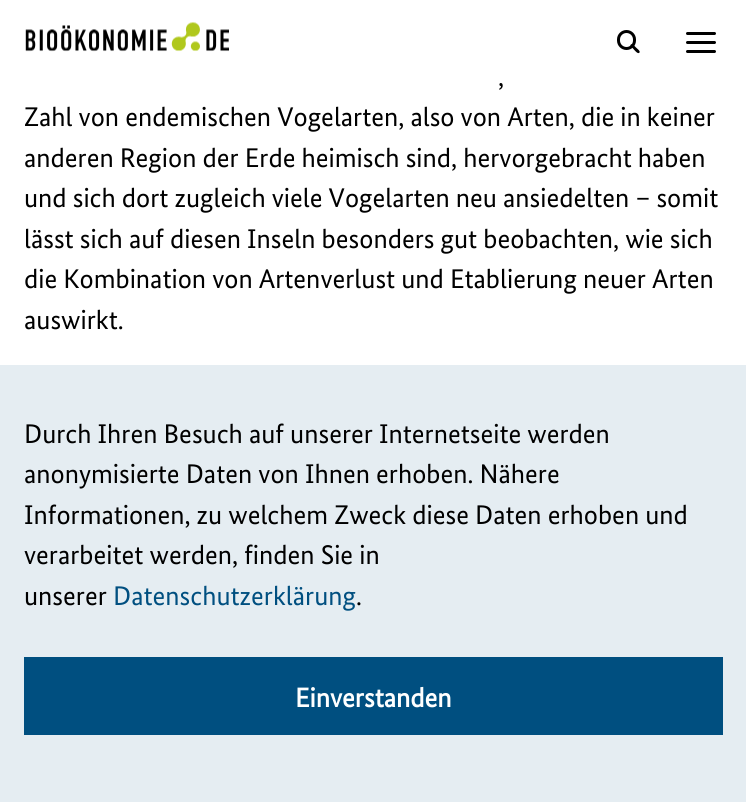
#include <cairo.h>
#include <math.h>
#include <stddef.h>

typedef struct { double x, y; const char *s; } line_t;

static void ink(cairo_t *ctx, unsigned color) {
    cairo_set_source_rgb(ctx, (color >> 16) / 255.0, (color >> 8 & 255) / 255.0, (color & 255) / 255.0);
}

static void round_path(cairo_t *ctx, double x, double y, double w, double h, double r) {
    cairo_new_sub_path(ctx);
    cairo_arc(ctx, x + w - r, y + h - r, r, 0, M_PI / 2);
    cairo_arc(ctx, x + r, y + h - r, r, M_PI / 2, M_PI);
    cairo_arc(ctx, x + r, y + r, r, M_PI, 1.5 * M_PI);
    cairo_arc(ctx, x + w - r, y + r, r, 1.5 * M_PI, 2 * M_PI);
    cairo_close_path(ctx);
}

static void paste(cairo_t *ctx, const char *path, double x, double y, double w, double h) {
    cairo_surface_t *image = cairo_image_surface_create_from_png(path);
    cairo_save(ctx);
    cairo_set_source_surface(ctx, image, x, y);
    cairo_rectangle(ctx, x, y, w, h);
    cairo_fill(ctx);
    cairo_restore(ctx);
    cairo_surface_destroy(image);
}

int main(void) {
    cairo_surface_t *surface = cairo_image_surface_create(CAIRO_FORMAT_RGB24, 746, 802);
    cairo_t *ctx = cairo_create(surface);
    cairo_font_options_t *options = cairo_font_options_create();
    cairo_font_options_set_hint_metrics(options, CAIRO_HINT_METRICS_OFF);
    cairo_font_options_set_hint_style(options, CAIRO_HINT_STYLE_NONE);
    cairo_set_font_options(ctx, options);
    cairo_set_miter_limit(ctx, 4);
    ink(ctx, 0xFFFFFF);
    cairo_paint(ctx);
    paste(ctx, "media/1.png", 25, 22, 204, 30);
    round_path(ctx, 618.5, 31.5, 16, 17, 8);
    ink(ctx, 0x000000);
    cairo_set_line_width(ctx, 3);
    cairo_stroke(ctx);
    cairo_new_path(ctx);
    cairo_move_to(ctx, 633, 44.5);
    cairo_line_to(ctx, 636, 47.5);
    cairo_curve_to(ctx, 637, 48.5, 640.5, 51, 639.5, 52.5);
    cairo_curve_to(ctx, 638, 55, 634, 49.5, 633, 48.5);
    cairo_line_to(ctx, 630.5, 46);
    cairo_curve_to(ctx, 630, 44.5, 632, 43.5, 633, 44.5);
    cairo_close_path(ctx);
    cairo_fill(ctx);
    round_path(ctx, 686, 50, 30, 3, 1.5);
    cairo_fill(ctx);
    round_path(ctx, 686, 32, 30, 3, 1.5);
    cairo_fill(ctx);
    round_path(ctx, 686, 41, 30, 3, 1.5);
    cairo_fill(ctx);
    cairo_select_font_face(ctx, "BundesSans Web", CAIRO_FONT_SLANT_NORMAL, CAIRO_FONT_WEIGHT_NORMAL);
    cairo_set_font_size(ctx, 27);
    {
        static const line_t items[] = {
            {498, 86, ","},
            {24, 126, "Zahl von endemischen Vogelarten, also von Arten, die in keiner"},
            {24, 167, "anderen Region der Erde heimisch sind, hervorgebracht haben"},
            {24, 207, "und sich dort zugleich viele Vogelarten neu ansiedelten – somit"},
            {24, 248, "lässt sich auf diesen Inseln besonders gut beobachten, wie sich"},
            {24, 288, "die Kombination von Artenverlust und Etablierung neuer Arten"},
            {24, 329, "auswirkt."},
        };
        for (size_t i = 0; i < sizeof items / sizeof *items; i++) {
            cairo_move_to(ctx, items[i].x, items[i].y);
            cairo_show_text(ctx, items[i].s);
        }
    }
    ink(ctx, 0xE5EDF2);
    cairo_rectangle(ctx, 0, 365, 746, 437);
    cairo_fill(ctx);
    ink(ctx, 0x000000);
    {
        static const line_t items[] = {
            {24, 443, "Durch Ihren Besuch auf unserer Internetseite werden"},
            {24, 483, "anonymisierte Daten von Ihnen erhoben. Nähere"},
            {24, 524, "Informationen, zu welchem Zweck diese Daten erhoben und"},
            {24, 564, "verarbeitet werden, finden Sie in"},
            {24, 605, "unserer"},
        };
        for (size_t i = 0; i < sizeof items / sizeof *items; i++) {
            cairo_move_to(ctx, items[i].x, items[i].y);
            cairo_show_text(ctx, items[i].s);
        }
    }
    ink(ctx, 0x004F80);
    cairo_move_to(ctx, 113, 605);
    cairo_show_text(ctx, "Datenschutzerklärung");
    ink(ctx, 0x000000);
    cairo_move_to(ctx, 356, 605);
    cairo_show_text(ctx, ".");
    ink(ctx, 0x004F80);
    cairo_rectangle(ctx, 24, 657, 699, 78);
    cairo_fill(ctx);
    cairo_select_font_face(ctx, "BundesSans Web", CAIRO_FONT_SLANT_NORMAL, CAIRO_FONT_WEIGHT_BOLD);
    ink(ctx, 0xFFFFFF);
    cairo_move_to(ctx, 295, 707);
    cairo_show_text(ctx, "Einverstanden");
    cairo_surface_write_to_png(surface, "image.png");
    cairo_font_options_destroy(options);
    cairo_destroy(ctx);
    cairo_surface_destroy(surface);
    return 0;
}
